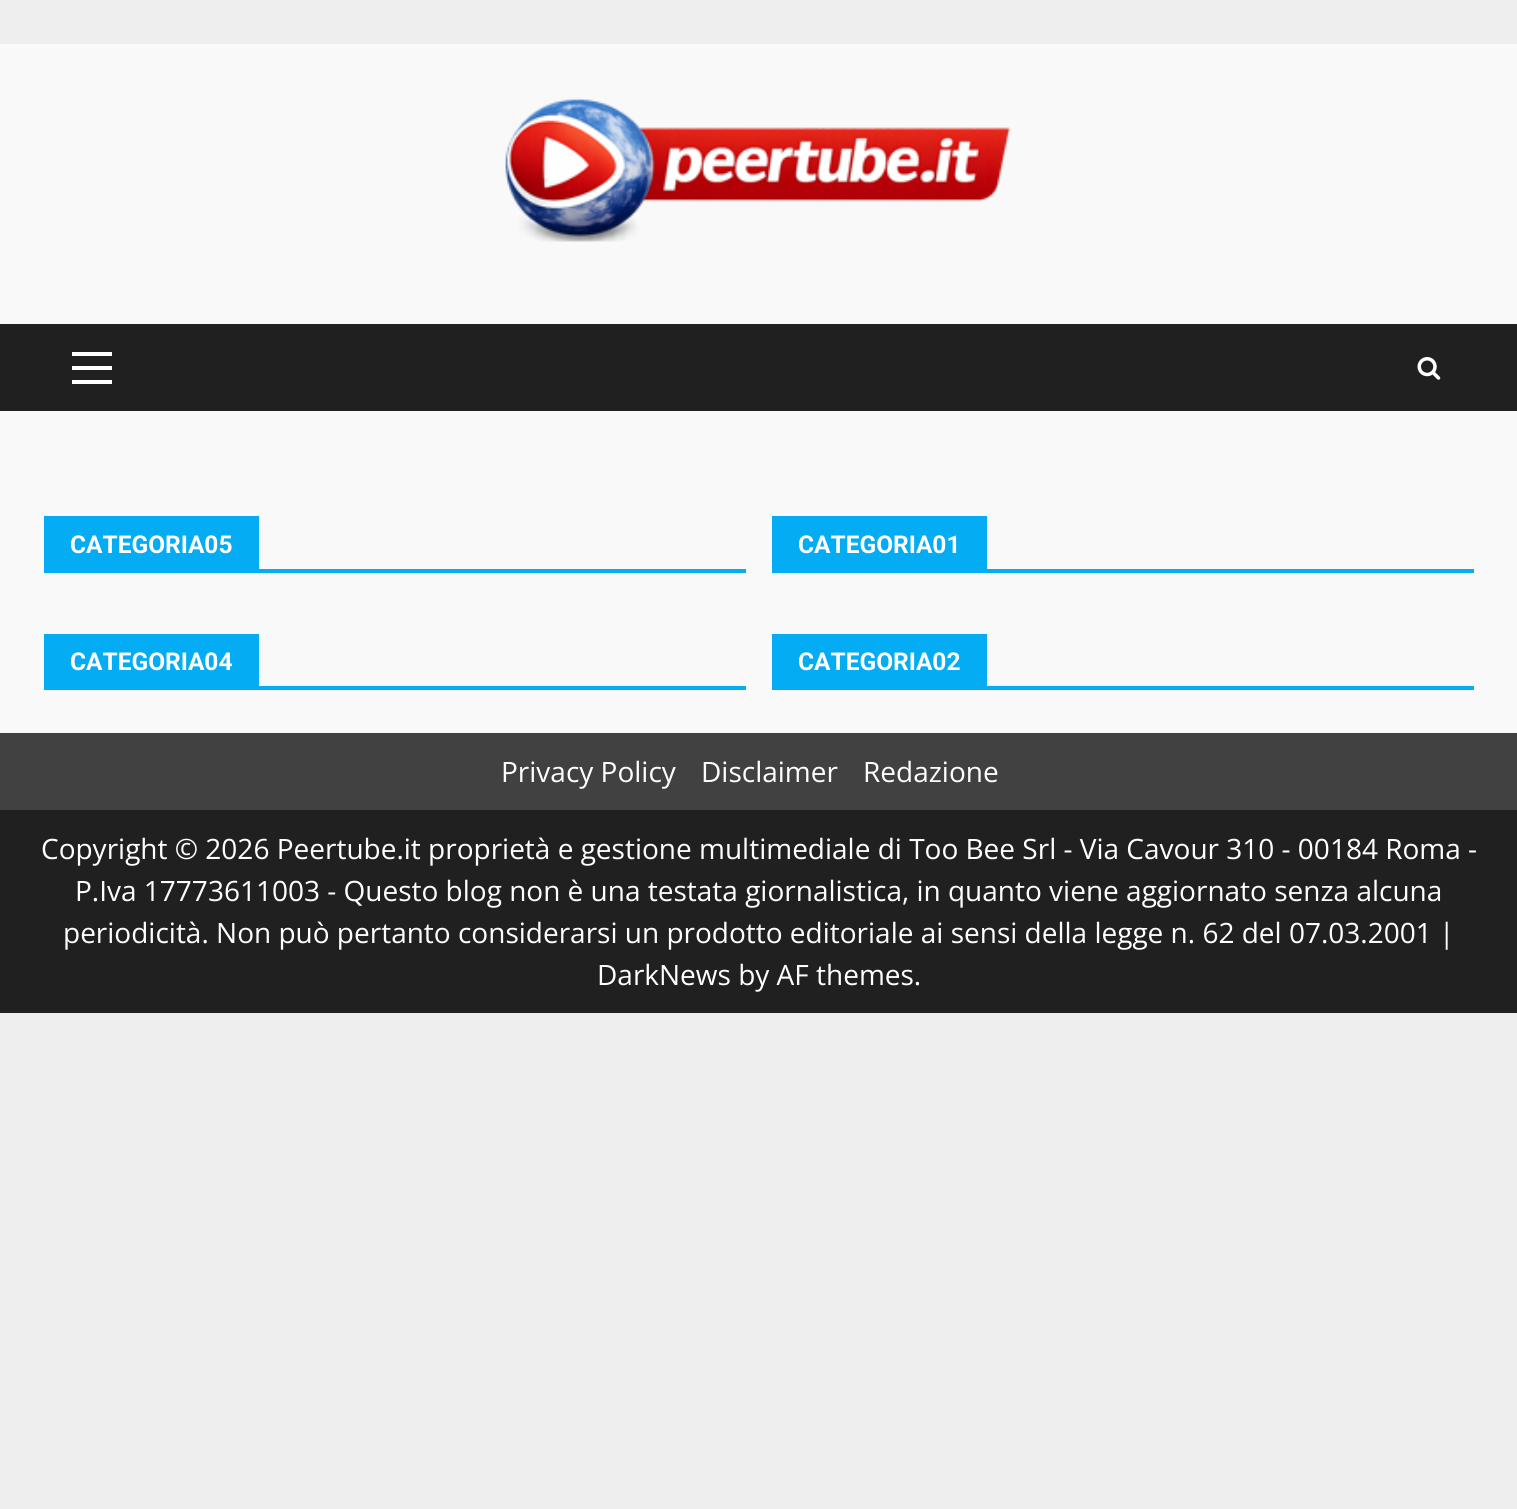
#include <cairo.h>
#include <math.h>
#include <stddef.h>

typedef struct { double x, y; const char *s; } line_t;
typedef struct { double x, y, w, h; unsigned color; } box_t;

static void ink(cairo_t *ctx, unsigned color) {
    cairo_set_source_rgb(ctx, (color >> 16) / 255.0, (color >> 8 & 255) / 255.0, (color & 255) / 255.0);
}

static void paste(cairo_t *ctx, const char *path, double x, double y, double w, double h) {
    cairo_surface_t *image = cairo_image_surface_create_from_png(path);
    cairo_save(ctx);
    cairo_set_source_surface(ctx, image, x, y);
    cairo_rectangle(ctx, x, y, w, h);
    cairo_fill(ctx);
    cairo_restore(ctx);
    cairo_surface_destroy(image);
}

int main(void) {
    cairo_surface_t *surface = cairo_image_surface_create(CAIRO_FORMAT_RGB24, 1517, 1509);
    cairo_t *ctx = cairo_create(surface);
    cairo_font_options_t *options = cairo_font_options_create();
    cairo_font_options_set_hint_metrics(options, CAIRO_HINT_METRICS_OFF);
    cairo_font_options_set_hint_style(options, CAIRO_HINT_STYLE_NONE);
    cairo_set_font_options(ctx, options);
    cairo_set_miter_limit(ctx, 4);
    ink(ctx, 0xEEEEEE);
    cairo_paint(ctx);
    ink(ctx, 0xF9F9F9);
    cairo_rectangle(ctx, 0, 44, 1517, 689);
    cairo_fill(ctx);
    paste(ctx, "media/1.png", 505, 98, 506, 144);
    {
        static const box_t items[] = {
            {0, 324, 1517, 87, 0x202020},
            {72, 366, 40, 4, 0xFFFFFF},
            {72, 352, 40, 4, 0xFFFFFF},
            {72, 380, 40, 4, 0xFFFFFF},
        };
        for (size_t i = 0; i < sizeof items / sizeof *items; i++) {
            ink(ctx, items[i].color);
            cairo_rectangle(ctx, items[i].x, items[i].y, items[i].w, items[i].h);
            cairo_fill(ctx);
        }
    }
    paste(ctx, "media/2.png", 1417, 357, 24, 23);
    ink(ctx, 0x04ACF4);
    cairo_rectangle(ctx, 44, 569, 702, 4);
    cairo_fill(ctx);
    cairo_rectangle(ctx, 44, 516, 215, 53);
    cairo_fill(ctx);
    cairo_select_font_face(ctx, "Roboto", CAIRO_FONT_SLANT_NORMAL, CAIRO_FONT_WEIGHT_BOLD);
    cairo_set_font_size(ctx, 24.5);
    ink(ctx, 0xFFFFFF);
    cairo_move_to(ctx, 70, 553);
    cairo_show_text(ctx, "CATEGORIA05");
    ink(ctx, 0x04ACF4);
    cairo_rectangle(ctx, 772, 569, 702, 4);
    cairo_fill(ctx);
    cairo_rectangle(ctx, 772, 516, 215, 53);
    cairo_fill(ctx);
    ink(ctx, 0xFFFFFF);
    cairo_move_to(ctx, 798, 553);
    cairo_show_text(ctx, "CATEGORIA01");
    ink(ctx, 0x04ACF4);
    cairo_rectangle(ctx, 44, 686, 702, 4);
    cairo_fill(ctx);
    cairo_rectangle(ctx, 44, 634, 215, 52);
    cairo_fill(ctx);
    ink(ctx, 0xFFFFFF);
    cairo_move_to(ctx, 70, 670);
    cairo_show_text(ctx, "CATEGORIA04");
    ink(ctx, 0x04ACF4);
    cairo_rectangle(ctx, 772, 686, 702, 4);
    cairo_fill(ctx);
    cairo_rectangle(ctx, 772, 634, 215, 52);
    cairo_fill(ctx);
    ink(ctx, 0xFFFFFF);
    cairo_move_to(ctx, 798, 670);
    cairo_show_text(ctx, "CATEGORIA02");
    ink(ctx, 0x202020);
    cairo_rectangle(ctx, 0, 810, 1517, 203);
    cairo_fill(ctx);
    ink(ctx, 0x414141);
    cairo_rectangle(ctx, 0, 733, 1517, 77);
    cairo_fill(ctx);
    cairo_select_font_face(ctx, "Open Sans", CAIRO_FONT_SLANT_NORMAL, CAIRO_FONT_WEIGHT_NORMAL);
    cairo_set_font_size(ctx, 28);
    ink(ctx, 0xFFFFFF);
    {
        static const line_t items[] = {
            {501, 782, "Privacy Policy"},
            {701, 782, "Disclaimer"},
            {863, 782, "Redazione"},
            {41, 859, "Copyright © 2026 Peertube.it proprietà e gestione multimediale di Too Bee Srl - Via Cavour 310 - 00184 Roma -"},
            {75, 901, "P.Iva 17773611003 - Questo blog non è una testata giornalistica, in quanto viene aggiornato senza alcuna"},
            {63, 943, "periodicità. Non può pertanto considerarsi un prodotto editoriale ai sensi della legge n. 62 del 07.03.2001 |"},
            {597, 985, "DarkNews by AF themes."},
        };
        for (size_t i = 0; i < sizeof items / sizeof *items; i++) {
            cairo_move_to(ctx, items[i].x, items[i].y);
            cairo_show_text(ctx, items[i].s);
        }
    }
    cairo_surface_write_to_png(surface, "image.png");
    cairo_font_options_destroy(options);
    cairo_destroy(ctx);
    cairo_surface_destroy(surface);
    return 0;
}
